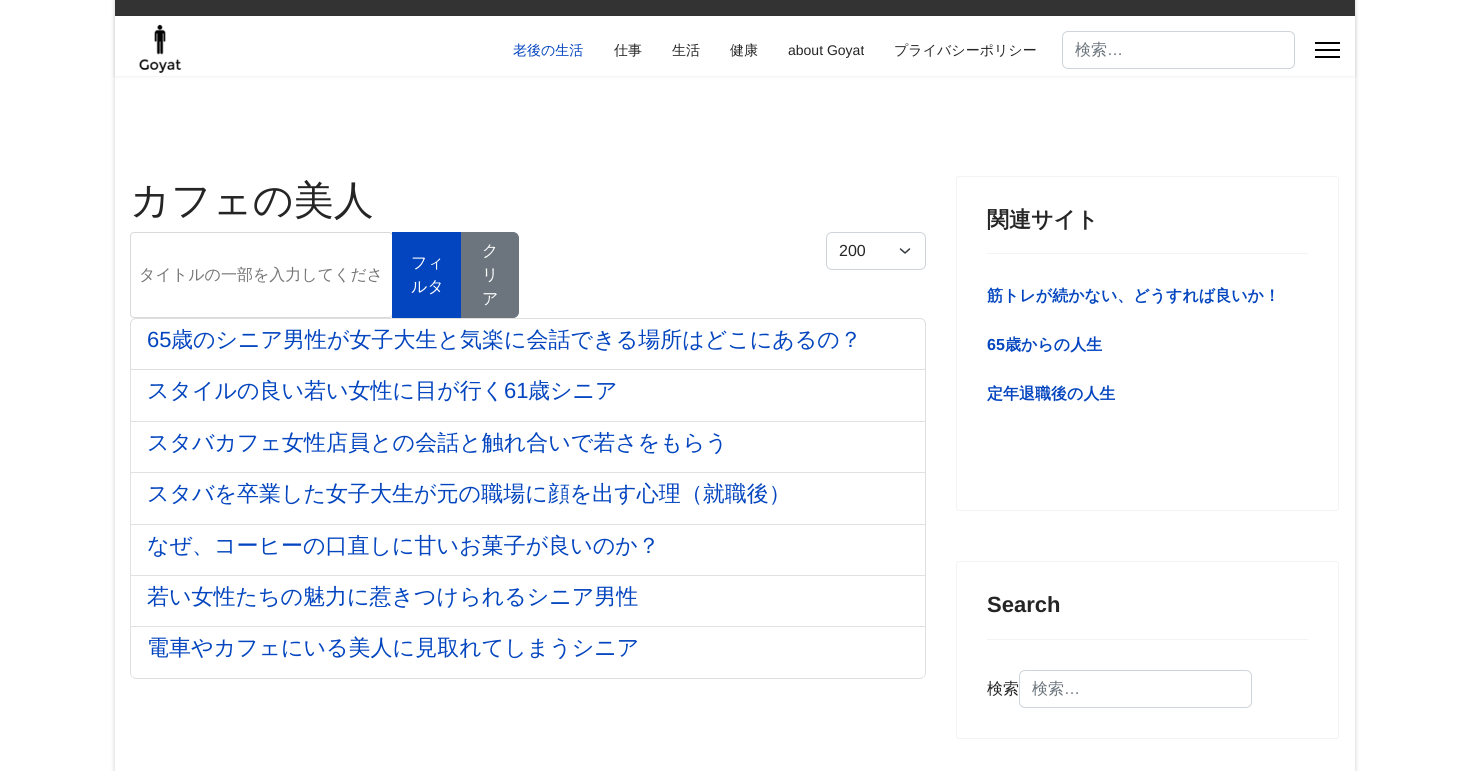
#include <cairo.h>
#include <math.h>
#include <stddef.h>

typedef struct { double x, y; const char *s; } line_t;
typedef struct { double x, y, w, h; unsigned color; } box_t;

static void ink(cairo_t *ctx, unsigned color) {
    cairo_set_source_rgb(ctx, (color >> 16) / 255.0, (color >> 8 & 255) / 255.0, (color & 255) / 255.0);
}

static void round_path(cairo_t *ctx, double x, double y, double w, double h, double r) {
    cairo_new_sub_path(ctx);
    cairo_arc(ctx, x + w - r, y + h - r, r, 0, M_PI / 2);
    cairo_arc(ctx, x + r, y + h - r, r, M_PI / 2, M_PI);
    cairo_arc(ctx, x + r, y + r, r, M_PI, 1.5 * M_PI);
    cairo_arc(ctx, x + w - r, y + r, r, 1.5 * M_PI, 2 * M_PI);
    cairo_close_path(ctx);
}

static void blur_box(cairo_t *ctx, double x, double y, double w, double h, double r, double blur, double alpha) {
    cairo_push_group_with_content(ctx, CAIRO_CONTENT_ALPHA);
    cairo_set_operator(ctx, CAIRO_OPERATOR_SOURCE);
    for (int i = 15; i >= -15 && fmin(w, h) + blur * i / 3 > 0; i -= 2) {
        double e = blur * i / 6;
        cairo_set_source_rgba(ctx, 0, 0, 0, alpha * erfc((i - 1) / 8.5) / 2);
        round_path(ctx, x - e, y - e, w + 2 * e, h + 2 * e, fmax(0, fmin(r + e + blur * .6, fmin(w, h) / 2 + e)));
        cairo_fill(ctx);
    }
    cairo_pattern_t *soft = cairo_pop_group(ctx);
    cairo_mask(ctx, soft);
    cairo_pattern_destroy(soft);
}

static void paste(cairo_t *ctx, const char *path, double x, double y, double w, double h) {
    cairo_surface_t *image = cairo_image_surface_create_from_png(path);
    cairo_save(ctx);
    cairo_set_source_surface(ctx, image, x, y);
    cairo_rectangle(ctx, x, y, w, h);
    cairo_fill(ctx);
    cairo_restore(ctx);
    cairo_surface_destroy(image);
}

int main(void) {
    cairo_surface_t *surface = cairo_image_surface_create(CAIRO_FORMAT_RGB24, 1469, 771);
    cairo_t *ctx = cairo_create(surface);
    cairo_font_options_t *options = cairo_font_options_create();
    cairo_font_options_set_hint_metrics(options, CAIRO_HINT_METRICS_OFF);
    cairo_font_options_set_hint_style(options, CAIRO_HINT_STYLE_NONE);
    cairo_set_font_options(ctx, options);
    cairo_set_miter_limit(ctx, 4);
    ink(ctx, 0xFFFFFF);
    cairo_paint(ctx);
    cairo_save(ctx);
    cairo_set_fill_rule(ctx, CAIRO_FILL_RULE_EVEN_ODD);
    cairo_new_path(ctx);
    cairo_move_to(ctx, 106, 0);
    cairo_line_to(ctx, 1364, 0);
    cairo_line_to(ctx, 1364, 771);
    cairo_line_to(ctx, 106, 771);
    cairo_close_path(ctx);
    cairo_move_to(ctx, 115, 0);
    cairo_line_to(ctx, 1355, 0);
    cairo_line_to(ctx, 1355, 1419);
    cairo_line_to(ctx, 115, 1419);
    cairo_close_path(ctx);
    cairo_clip(ctx);
    ink(ctx, 0x000000);
    blur_box(ctx, 115, 0, 1240, 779, 0, 2.5, 0.2);
    cairo_restore(ctx);
    ink(ctx, 0x333333);
    cairo_rectangle(ctx, 115, 0, 1240, 16);
    cairo_fill(ctx);
    cairo_save(ctx);
    cairo_set_fill_rule(ctx, CAIRO_FILL_RULE_EVEN_ODD);
    cairo_new_path(ctx);
    cairo_move_to(ctx, 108, 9);
    cairo_line_to(ctx, 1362, 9);
    cairo_line_to(ctx, 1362, 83);
    cairo_line_to(ctx, 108, 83);
    cairo_close_path(ctx);
    cairo_move_to(ctx, 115, 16);
    cairo_line_to(ctx, 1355, 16);
    cairo_line_to(ctx, 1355, 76);
    cairo_line_to(ctx, 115, 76);
    cairo_close_path(ctx);
    cairo_clip(ctx);
    ink(ctx, 0x000000);
    blur_box(ctx, 115, 16, 1240, 60, 0, 2, 0.1);
    cairo_restore(ctx);
    paste(ctx, "media/1.png", 139, 24, 43, 49);
    cairo_select_font_face(ctx, "WenQuanYi Zen Hei Medium", CAIRO_FONT_SLANT_NORMAL, CAIRO_FONT_WEIGHT_NORMAL);
    cairo_set_font_size(ctx, 14);
    ink(ctx, 0x0345BF);
    cairo_move_to(ctx, 513, 55);
    cairo_show_text(ctx, "老後の生活");
    ink(ctx, 0x252525);
    {
        static const line_t items[] = {
            {614, 55, "仕事"},
            {672, 55, "生活"},
            {730, 55, "健康"},
        };
        for (size_t i = 0; i < sizeof items / sizeof *items; i++) {
            cairo_move_to(ctx, items[i].x, items[i].y);
            cairo_show_text(ctx, items[i].s);
        }
    }
    cairo_select_font_face(ctx, "Liberation Sans", CAIRO_FONT_SLANT_NORMAL, CAIRO_FONT_WEIGHT_NORMAL);
    cairo_move_to(ctx, 788, 55);
    cairo_show_text(ctx, "about Goyat");
    cairo_select_font_face(ctx, "WenQuanYi Zen Hei Medium", CAIRO_FONT_SLANT_NORMAL, CAIRO_FONT_WEIGHT_NORMAL);
    cairo_move_to(ctx, 894, 55);
    cairo_show_text(ctx, "プライバシーポリシー");
    round_path(ctx, 1062.5, 31.5, 232, 37, 5.5);
    ink(ctx, 0xCED4DA);
    cairo_set_line_width(ctx, 1);
    cairo_stroke(ctx);
    cairo_set_font_size(ctx, 16);
    ink(ctx, 0x6C757D);
    cairo_move_to(ctx, 1075, 55);
    cairo_show_text(ctx, "検索");
    cairo_select_font_face(ctx, "Liberation Sans", CAIRO_FONT_SLANT_NORMAL, CAIRO_FONT_WEIGHT_NORMAL);
    cairo_move_to(ctx, 1107, 55);
    cairo_show_text(ctx, "…");
    {
        static const box_t items[] = {
            {1315, 42, 25, 2, 0x000000},
            {1315, 49, 25, 2, 0x000000},
            {1315, 56, 25, 2, 0x000000},
        };
        for (size_t i = 0; i < sizeof items / sizeof *items; i++) {
            ink(ctx, items[i].color);
            cairo_rectangle(ctx, items[i].x, items[i].y, items[i].w, items[i].h);
            cairo_fill(ctx);
        }
    }
    cairo_select_font_face(ctx, "WenQuanYi Zen Hei Medium", CAIRO_FONT_SLANT_NORMAL, CAIRO_FONT_WEIGHT_NORMAL);
    cairo_set_font_size(ctx, 40);
    ink(ctx, 0x252525);
    cairo_move_to(ctx, 130, 214);
    cairo_show_text(ctx, "カフェの美人");
    round_path(ctx, 130.5, 232.5, 262, 85, 3.5);
    ink(ctx, 0xD9D9D9);
    cairo_stroke(ctx);
    cairo_set_font_size(ctx, 16);
    ink(ctx, 0x757575);
    cairo_move_to(ctx, 139, 280);
    cairo_show_text(ctx, "タイトルの一部を入力してくださ");
    ink(ctx, 0x0345BF);
    cairo_rectangle(ctx, 392, 232, 69, 86);
    cairo_fill(ctx);
    ink(ctx, 0xFFFFFF);
    cairo_move_to(ctx, 411, 268);
    cairo_show_text(ctx, "フィ");
    cairo_move_to(ctx, 411, 292);
    cairo_show_text(ctx, "ルタ");
    ink(ctx, 0x6C757D);
    cairo_new_path(ctx);
    cairo_move_to(ctx, 461.5, 232.5);
    cairo_line_to(ctx, 513, 232.5);
    cairo_curve_to(ctx, 516, 232.5, 518.5, 235, 518.5, 238);
    cairo_line_to(ctx, 518.5, 312);
    cairo_curve_to(ctx, 518.5, 315, 516, 317.5, 513, 317.5);
    cairo_line_to(ctx, 461.5, 317.5);
    cairo_close_path(ctx);
    cairo_fill_preserve(ctx);
    cairo_stroke(ctx);
    ink(ctx, 0xFFFFFF);
    {
        static const line_t items[] = {
            {482, 256, "ク"},
            {482, 280, "リ"},
            {482, 304, "ア"},
        };
        for (size_t i = 0; i < sizeof items / sizeof *items; i++) {
            cairo_move_to(ctx, items[i].x, items[i].y);
            cairo_show_text(ctx, items[i].s);
        }
    }
    cairo_new_path(ctx);
    cairo_move_to(ctx, 900.5, 249);
    cairo_line_to(ctx, 905, 253);
    cairo_line_to(ctx, 909.5, 249);
    ink(ctx, 0x343A40);
    cairo_set_line_width(ctx, 1.5);
    cairo_set_line_cap(ctx, CAIRO_LINE_CAP_ROUND);
    cairo_set_line_join(ctx, CAIRO_LINE_JOIN_ROUND);
    cairo_stroke(ctx);
    round_path(ctx, 826.5, 232.5, 99, 37, 5.5);
    ink(ctx, 0xCED4DA);
    cairo_set_line_width(ctx, 1);
    cairo_set_line_cap(ctx, CAIRO_LINE_CAP_BUTT);
    cairo_set_line_join(ctx, CAIRO_LINE_JOIN_MITER);
    cairo_stroke(ctx);
    cairo_select_font_face(ctx, "Liberation Sans", CAIRO_FONT_SLANT_NORMAL, CAIRO_FONT_WEIGHT_NORMAL);
    ink(ctx, 0x252525);
    cairo_move_to(ctx, 839, 256);
    cairo_show_text(ctx, "200");
    cairo_new_path(ctx);
    cairo_move_to(ctx, 136, 318.5);
    cairo_line_to(ctx, 920, 318.5);
    cairo_curve_to(ctx, 923, 318.5, 925.5, 321, 925.5, 324);
    cairo_line_to(ctx, 925.5, 369.5);
    cairo_line_to(ctx, 130.5, 369.5);
    cairo_line_to(ctx, 130.5, 324);
    cairo_curve_to(ctx, 130.5, 321, 133, 318.5, 136, 318.5);
    cairo_close_path(ctx);
    ink(ctx, 0xDFDFDF);
    cairo_stroke(ctx);
    cairo_set_font_size(ctx, 22);
    ink(ctx, 0x0345BF);
    cairo_move_to(ctx, 147, 347);
    cairo_show_text(ctx, "65");
    cairo_select_font_face(ctx, "WenQuanYi Zen Hei Medium", CAIRO_FONT_SLANT_NORMAL, CAIRO_FONT_WEIGHT_NORMAL);
    cairo_move_to(ctx, 171, 347);
    cairo_show_text(ctx, "歳のシニア男性が女子大生と気楽に会話できる場所はどこにあるの？");
    ink(ctx, 0xDFDFDF);
    cairo_new_path(ctx);
    cairo_move_to(ctx, 926, 370);
    cairo_line_to(ctx, 926, 422);
    cairo_line_to(ctx, 925, 421);
    cairo_line_to(ctx, 925, 370);
    cairo_close_path(ctx);
    cairo_fill(ctx);
    cairo_set_source_rgba(ctx, 0, 0, 0, 0.12);
    cairo_new_path(ctx);
    cairo_move_to(ctx, 926, 422);
    cairo_line_to(ctx, 130, 422);
    cairo_line_to(ctx, 131, 421);
    cairo_line_to(ctx, 925, 421);
    cairo_close_path(ctx);
    cairo_fill(ctx);
    cairo_new_path(ctx);
    cairo_move_to(ctx, 130, 422);
    cairo_line_to(ctx, 130, 370);
    cairo_line_to(ctx, 131, 370);
    cairo_line_to(ctx, 131, 421);
    cairo_close_path(ctx);
    cairo_fill(ctx);
    ink(ctx, 0x0345BF);
    cairo_move_to(ctx, 147, 398);
    cairo_show_text(ctx, "スタイルの良い若い女性に目が行く");
    cairo_select_font_face(ctx, "Liberation Sans", CAIRO_FONT_SLANT_NORMAL, CAIRO_FONT_WEIGHT_NORMAL);
    cairo_move_to(ctx, 504, 398);
    cairo_show_text(ctx, "61");
    cairo_select_font_face(ctx, "WenQuanYi Zen Hei Medium", CAIRO_FONT_SLANT_NORMAL, CAIRO_FONT_WEIGHT_NORMAL);
    cairo_move_to(ctx, 528, 398);
    cairo_show_text(ctx, "歳シニア");
    ink(ctx, 0xDFDFDF);
    cairo_new_path(ctx);
    cairo_move_to(ctx, 926, 422);
    cairo_line_to(ctx, 926, 473);
    cairo_line_to(ctx, 925, 472);
    cairo_line_to(ctx, 925, 422);
    cairo_close_path(ctx);
    cairo_fill(ctx);
    cairo_set_source_rgba(ctx, 0, 0, 0, 0.12);
    cairo_new_path(ctx);
    cairo_move_to(ctx, 926, 473);
    cairo_line_to(ctx, 130, 473);
    cairo_line_to(ctx, 131, 472);
    cairo_line_to(ctx, 925, 472);
    cairo_close_path(ctx);
    cairo_fill(ctx);
    cairo_new_path(ctx);
    cairo_move_to(ctx, 130, 473);
    cairo_line_to(ctx, 130, 422);
    cairo_line_to(ctx, 131, 422);
    cairo_line_to(ctx, 131, 472);
    cairo_close_path(ctx);
    cairo_fill(ctx);
    ink(ctx, 0x0345BF);
    cairo_move_to(ctx, 147, 450);
    cairo_show_text(ctx, "スタバカフェ女性店員との会話と触れ合いで若さをもらう");
    ink(ctx, 0xDFDFDF);
    cairo_new_path(ctx);
    cairo_move_to(ctx, 926, 473);
    cairo_line_to(ctx, 926, 525);
    cairo_line_to(ctx, 925, 524);
    cairo_line_to(ctx, 925, 473);
    cairo_close_path(ctx);
    cairo_fill(ctx);
    cairo_set_source_rgba(ctx, 0, 0, 0, 0.12);
    cairo_new_path(ctx);
    cairo_move_to(ctx, 926, 525);
    cairo_line_to(ctx, 130, 525);
    cairo_line_to(ctx, 131, 524);
    cairo_line_to(ctx, 925, 524);
    cairo_close_path(ctx);
    cairo_fill(ctx);
    cairo_new_path(ctx);
    cairo_move_to(ctx, 130, 525);
    cairo_line_to(ctx, 130, 473);
    cairo_line_to(ctx, 131, 473);
    cairo_line_to(ctx, 131, 524);
    cairo_close_path(ctx);
    cairo_fill(ctx);
    ink(ctx, 0x0345BF);
    cairo_move_to(ctx, 147, 501);
    cairo_show_text(ctx, "スタバを卒業した女子大生が元の職場に顔を出す心理（就職後）");
    ink(ctx, 0xDFDFDF);
    cairo_new_path(ctx);
    cairo_move_to(ctx, 926, 525);
    cairo_line_to(ctx, 926, 576);
    cairo_line_to(ctx, 925, 575);
    cairo_line_to(ctx, 925, 525);
    cairo_close_path(ctx);
    cairo_fill(ctx);
    cairo_set_source_rgba(ctx, 0, 0, 0, 0.12);
    cairo_new_path(ctx);
    cairo_move_to(ctx, 926, 576);
    cairo_line_to(ctx, 130, 576);
    cairo_line_to(ctx, 131, 575);
    cairo_line_to(ctx, 925, 575);
    cairo_close_path(ctx);
    cairo_fill(ctx);
    cairo_new_path(ctx);
    cairo_move_to(ctx, 130, 576);
    cairo_line_to(ctx, 130, 525);
    cairo_line_to(ctx, 131, 525);
    cairo_line_to(ctx, 131, 575);
    cairo_close_path(ctx);
    cairo_fill(ctx);
    ink(ctx, 0x0345BF);
    cairo_move_to(ctx, 147, 553);
    cairo_show_text(ctx, "なぜ、コーヒーの口直しに甘いお菓子が良いのか？");
    ink(ctx, 0xDFDFDF);
    cairo_new_path(ctx);
    cairo_move_to(ctx, 926, 576);
    cairo_line_to(ctx, 926, 627);
    cairo_line_to(ctx, 925, 626);
    cairo_line_to(ctx, 925, 576);
    cairo_close_path(ctx);
    cairo_fill(ctx);
    cairo_set_source_rgba(ctx, 0, 0, 0, 0.12);
    cairo_new_path(ctx);
    cairo_move_to(ctx, 926, 627);
    cairo_line_to(ctx, 130, 627);
    cairo_line_to(ctx, 131, 626);
    cairo_line_to(ctx, 925, 626);
    cairo_close_path(ctx);
    cairo_fill(ctx);
    cairo_new_path(ctx);
    cairo_move_to(ctx, 130, 627);
    cairo_line_to(ctx, 130, 576);
    cairo_line_to(ctx, 131, 576);
    cairo_line_to(ctx, 131, 626);
    cairo_close_path(ctx);
    cairo_fill(ctx);
    ink(ctx, 0x0345BF);
    cairo_move_to(ctx, 147, 604);
    cairo_show_text(ctx, "若い女性たちの魅力に惹きつけられるシニア男性");
    ink(ctx, 0xDFDFDF);
    cairo_set_fill_rule(ctx, CAIRO_FILL_RULE_EVEN_ODD);
    cairo_new_path(ctx);
    cairo_move_to(ctx, 130, 627);
    cairo_line_to(ctx, 926, 627);
    cairo_line_to(ctx, 926, 673);
    cairo_curve_to(ctx, 926, 676, 923, 679, 920, 679);
    cairo_line_to(ctx, 136, 679);
    cairo_curve_to(ctx, 133, 679, 130, 676, 130, 673);
    cairo_close_path(ctx);
    cairo_move_to(ctx, 131, 627);
    cairo_line_to(ctx, 925, 627);
    cairo_line_to(ctx, 925, 673);
    cairo_curve_to(ctx, 925, 676, 923, 678, 920, 678);
    cairo_line_to(ctx, 136, 678);
    cairo_curve_to(ctx, 133, 678, 131, 676, 131, 673);
    cairo_close_path(ctx);
    cairo_fill(ctx);
    ink(ctx, 0x0345BF);
    cairo_move_to(ctx, 147, 655);
    cairo_show_text(ctx, "電車やカフェにいる美人に見取れてしまうシニア");
    round_path(ctx, 956.5, 176.5, 382, 334, 2.5);
    ink(ctx, 0xF3F3F3);
    cairo_stroke(ctx);
    cairo_rectangle(ctx, 987, 253, 321, 1);
    cairo_fill(ctx);
    cairo_select_font_face(ctx, "WenQuanYi Zen Hei", CAIRO_FONT_SLANT_NORMAL, CAIRO_FONT_WEIGHT_BOLD);
    ink(ctx, 0x252525);
    cairo_move_to(ctx, 987, 227);
    cairo_show_text(ctx, "関連サイト");
    cairo_set_font_size(ctx, 16);
    ink(ctx, 0x0345BF);
    cairo_move_to(ctx, 987, 301);
    cairo_show_text(ctx, "筋トレが続かない、どうすれば良いか！");
    cairo_select_font_face(ctx, "Liberation Sans", CAIRO_FONT_SLANT_NORMAL, CAIRO_FONT_WEIGHT_BOLD);
    cairo_move_to(ctx, 987, 350);
    cairo_show_text(ctx, "65");
    cairo_select_font_face(ctx, "WenQuanYi Zen Hei", CAIRO_FONT_SLANT_NORMAL, CAIRO_FONT_WEIGHT_BOLD);
    cairo_move_to(ctx, 1005, 350);
    cairo_show_text(ctx, "歳からの人生");
    cairo_move_to(ctx, 987, 399);
    cairo_show_text(ctx, "定年退職後の人生");
    round_path(ctx, 956.5, 561.5, 382, 177, 2.5);
    ink(ctx, 0xF3F3F3);
    cairo_stroke(ctx);
    cairo_rectangle(ctx, 987, 639, 321, 1);
    cairo_fill(ctx);
    cairo_select_font_face(ctx, "Liberation Sans", CAIRO_FONT_SLANT_NORMAL, CAIRO_FONT_WEIGHT_BOLD);
    cairo_set_font_size(ctx, 22);
    ink(ctx, 0x252525);
    cairo_move_to(ctx, 987, 612);
    cairo_show_text(ctx, "Search");
    cairo_select_font_face(ctx, "WenQuanYi Zen Hei Medium", CAIRO_FONT_SLANT_NORMAL, CAIRO_FONT_WEIGHT_NORMAL);
    cairo_set_font_size(ctx, 16);
    cairo_move_to(ctx, 987, 694);
    cairo_show_text(ctx, "検索");
    round_path(ctx, 1019.5, 670.5, 232, 37, 5.5);
    ink(ctx, 0xCED4DA);
    cairo_stroke(ctx);
    ink(ctx, 0x6C757D);
    cairo_move_to(ctx, 1032, 694);
    cairo_show_text(ctx, "検索");
    cairo_select_font_face(ctx, "Liberation Sans", CAIRO_FONT_SLANT_NORMAL, CAIRO_FONT_WEIGHT_NORMAL);
    cairo_move_to(ctx, 1064, 694);
    cairo_show_text(ctx, "…");
    cairo_surface_write_to_png(surface, "image.png");
    cairo_font_options_destroy(options);
    cairo_destroy(ctx);
    cairo_surface_destroy(surface);
    return 0;
}
